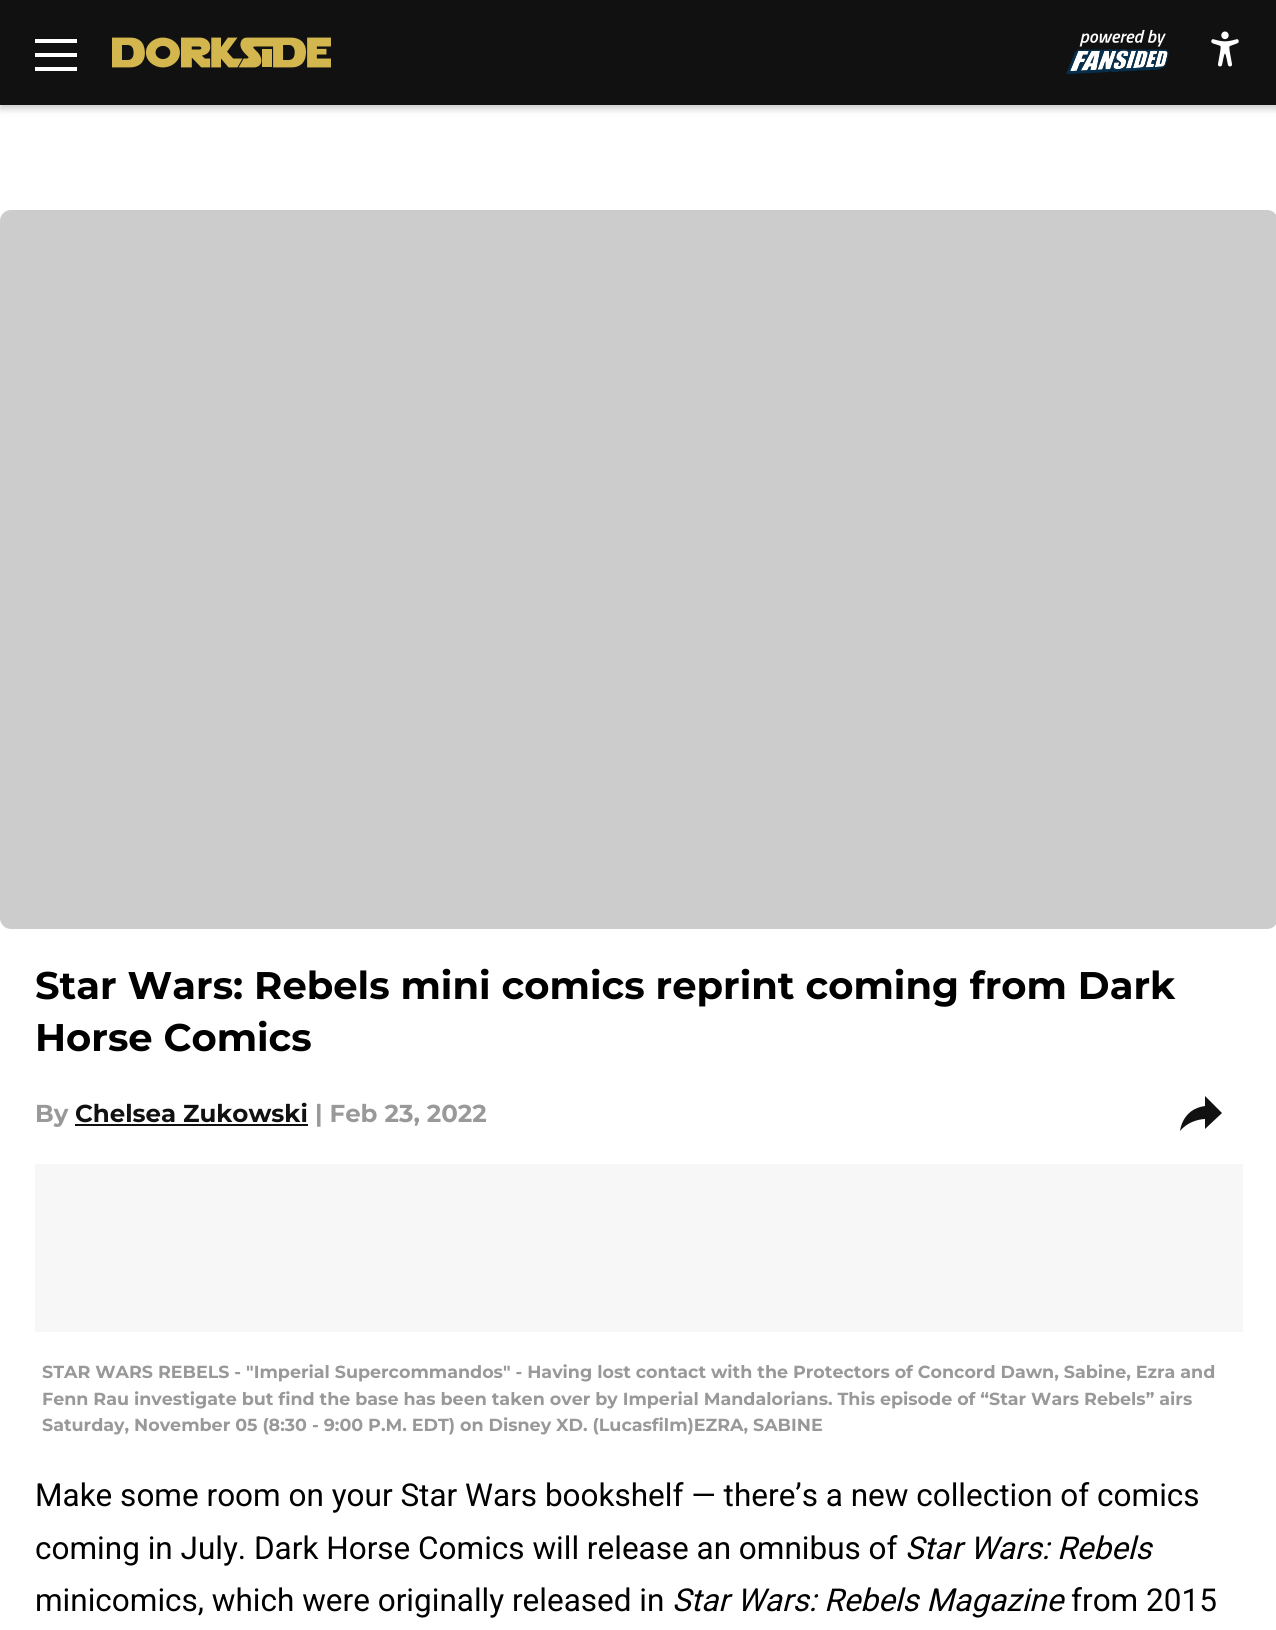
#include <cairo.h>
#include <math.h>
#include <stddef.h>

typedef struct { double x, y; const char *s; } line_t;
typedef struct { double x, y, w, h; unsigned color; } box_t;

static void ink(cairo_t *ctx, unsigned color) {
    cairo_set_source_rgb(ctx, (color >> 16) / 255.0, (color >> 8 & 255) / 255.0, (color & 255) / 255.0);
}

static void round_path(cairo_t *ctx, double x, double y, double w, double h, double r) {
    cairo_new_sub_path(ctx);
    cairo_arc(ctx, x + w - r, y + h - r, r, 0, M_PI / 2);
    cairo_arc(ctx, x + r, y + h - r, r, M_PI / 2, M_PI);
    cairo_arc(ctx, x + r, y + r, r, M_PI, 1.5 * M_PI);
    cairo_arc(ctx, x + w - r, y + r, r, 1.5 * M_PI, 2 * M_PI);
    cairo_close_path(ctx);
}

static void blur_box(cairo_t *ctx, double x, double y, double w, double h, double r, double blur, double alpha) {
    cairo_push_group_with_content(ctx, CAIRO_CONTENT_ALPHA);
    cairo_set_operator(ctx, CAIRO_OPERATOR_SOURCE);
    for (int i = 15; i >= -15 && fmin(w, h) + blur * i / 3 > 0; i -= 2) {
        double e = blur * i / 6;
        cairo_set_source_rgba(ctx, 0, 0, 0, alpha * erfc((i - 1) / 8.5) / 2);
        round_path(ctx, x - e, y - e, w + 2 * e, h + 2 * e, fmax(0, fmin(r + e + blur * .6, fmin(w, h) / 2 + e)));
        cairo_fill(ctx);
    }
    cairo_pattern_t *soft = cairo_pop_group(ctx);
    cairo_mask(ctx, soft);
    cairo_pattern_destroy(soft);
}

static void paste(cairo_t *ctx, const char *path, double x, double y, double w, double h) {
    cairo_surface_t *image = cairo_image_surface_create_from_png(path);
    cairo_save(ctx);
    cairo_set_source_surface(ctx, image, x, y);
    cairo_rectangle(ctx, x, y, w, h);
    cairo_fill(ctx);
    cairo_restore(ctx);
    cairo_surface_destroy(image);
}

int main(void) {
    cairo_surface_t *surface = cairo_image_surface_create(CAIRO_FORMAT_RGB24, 1276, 1630);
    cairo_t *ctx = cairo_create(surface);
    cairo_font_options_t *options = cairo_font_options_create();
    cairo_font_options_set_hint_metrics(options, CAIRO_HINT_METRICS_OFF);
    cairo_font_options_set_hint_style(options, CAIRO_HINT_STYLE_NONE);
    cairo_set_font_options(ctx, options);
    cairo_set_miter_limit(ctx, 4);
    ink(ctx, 0xFFFFFF);
    cairo_paint(ctx);
    ink(ctx, 0x000000);
    blur_box(ctx, 0, 4, 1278, 105, 0, 3.5, 0.2);
    {
        static const box_t items[] = {
            {0, 0, 1276, 105, 0x111111},
            {35, 39, 42, 4, 0xFFFFFF},
            {35, 53, 42, 4, 0xFFFFFF},
            {35, 67, 42, 4, 0xFFFFFF},
        };
        for (size_t i = 0; i < sizeof items / sizeof *items; i++) {
            ink(ctx, items[i].color);
            cairo_rectangle(ctx, items[i].x, items[i].y, items[i].w, items[i].h);
            cairo_fill(ctx);
        }
    }
    paste(ctx, "media/1.png", 112, 37, 219, 31);
    paste(ctx, "media/2.png", 1066, 29, 103, 46);
    paste(ctx, "media/3.png", 1211, 31, 28, 36);
    ink(ctx, 0xCCCCCC);
    round_path(ctx, 0, 210, 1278, 719, 11);
    cairo_fill(ctx);
    cairo_select_font_face(ctx, "Montserrat Thin", CAIRO_FONT_SLANT_NORMAL, CAIRO_FONT_WEIGHT_NORMAL);
    cairo_set_font_size(ctx, 38.5);
    ink(ctx, 0x000000);
    cairo_move_to(ctx, 35, 999);
    cairo_show_text(ctx, "Star Wars: Rebels mini comics reprint coming from Dark");
    cairo_move_to(ctx, 35, 1051);
    cairo_show_text(ctx, "Horse Comics");
    cairo_set_font_size(ctx, 24.5);
    ink(ctx, 0x999999);
    cairo_move_to(ctx, 35, 1122);
    cairo_show_text(ctx, "By");
    ink(ctx, 0x111111);
    cairo_move_to(ctx, 75, 1122);
    cairo_show_text(ctx, "Chelsea Zukowski");
    cairo_rectangle(ctx, 75, 1124, 233, 2);
    cairo_fill(ctx);
    ink(ctx, 0x999999);
    cairo_move_to(ctx, 315, 1122);
    cairo_show_text(ctx, "| Feb 23, 2022");
    ink(ctx, 0x111111);
    cairo_new_path(ctx);
    cairo_move_to(ctx, 1205, 1129);
    cairo_line_to(ctx, 1205, 1119);
    cairo_curve_to(ctx, 1205, 1119, 1190, 1119, 1180, 1131);
    cairo_curve_to(ctx, 1180, 1131, 1182, 1109, 1205, 1106);
    cairo_line_to(ctx, 1205, 1096);
    cairo_line_to(ctx, 1222, 1113);
    cairo_close_path(ctx);
    cairo_fill(ctx);
    ink(ctx, 0xF7F7F7);
    cairo_rectangle(ctx, 35, 1164, 1208, 168);
    cairo_fill(ctx);
    cairo_set_font_size(ctx, 17.5);
    ink(ctx, 0x999999);
    {
        static const line_t items[] = {
            {42, 1378, "STAR WARS REBELS - \"Imperial Supercommandos\" - Having lost contact with the Protectors of Concord Dawn, Sabine, Ezra and"},
            {42, 1405, "Fenn Rau investigate but find the base has been taken over by Imperial Mandalorians. This episode of “Star Wars Rebels” airs"},
            {42, 1431, "Saturday, November 05 (8:30 - 9:00 P.M. EDT) on Disney XD. (Lucasfilm)EZRA, SABINE"},
        };
        for (size_t i = 0; i < sizeof items / sizeof *items; i++) {
            cairo_move_to(ctx, items[i].x, items[i].y);
            cairo_show_text(ctx, items[i].s);
        }
    }
    cairo_select_font_face(ctx, "Roboto", CAIRO_FONT_SLANT_NORMAL, CAIRO_FONT_WEIGHT_NORMAL);
    cairo_set_font_size(ctx, 31.5);
    ink(ctx, 0x000000);
    cairo_move_to(ctx, 35, 1506);
    cairo_show_text(ctx, "Make some room on your Star Wars bookshelf — there’s a new collection of comics");
    cairo_move_to(ctx, 35, 1559);
    cairo_show_text(ctx, "coming in July. Dark Horse Comics will release an omnibus of");
    cairo_select_font_face(ctx, "Roboto", CAIRO_FONT_SLANT_ITALIC, CAIRO_FONT_WEIGHT_NORMAL);
    cairo_move_to(ctx, 905, 1559);
    cairo_show_text(ctx, "Star Wars: Rebels");
    cairo_select_font_face(ctx, "Roboto", CAIRO_FONT_SLANT_NORMAL, CAIRO_FONT_WEIGHT_NORMAL);
    cairo_move_to(ctx, 35, 1611);
    cairo_show_text(ctx, "minicomics, which were originally released in");
    cairo_select_font_face(ctx, "Roboto", CAIRO_FONT_SLANT_ITALIC, CAIRO_FONT_WEIGHT_NORMAL);
    cairo_move_to(ctx, 672, 1611);
    cairo_show_text(ctx, "Star Wars: Rebels Magazine");
    cairo_select_font_face(ctx, "Roboto", CAIRO_FONT_SLANT_NORMAL, CAIRO_FONT_WEIGHT_NORMAL);
    cairo_move_to(ctx, 1071, 1611);
    cairo_show_text(ctx, "from 2015");
    cairo_surface_write_to_png(surface, "image.png");
    cairo_font_options_destroy(options);
    cairo_destroy(ctx);
    cairo_surface_destroy(surface);
    return 0;
}
